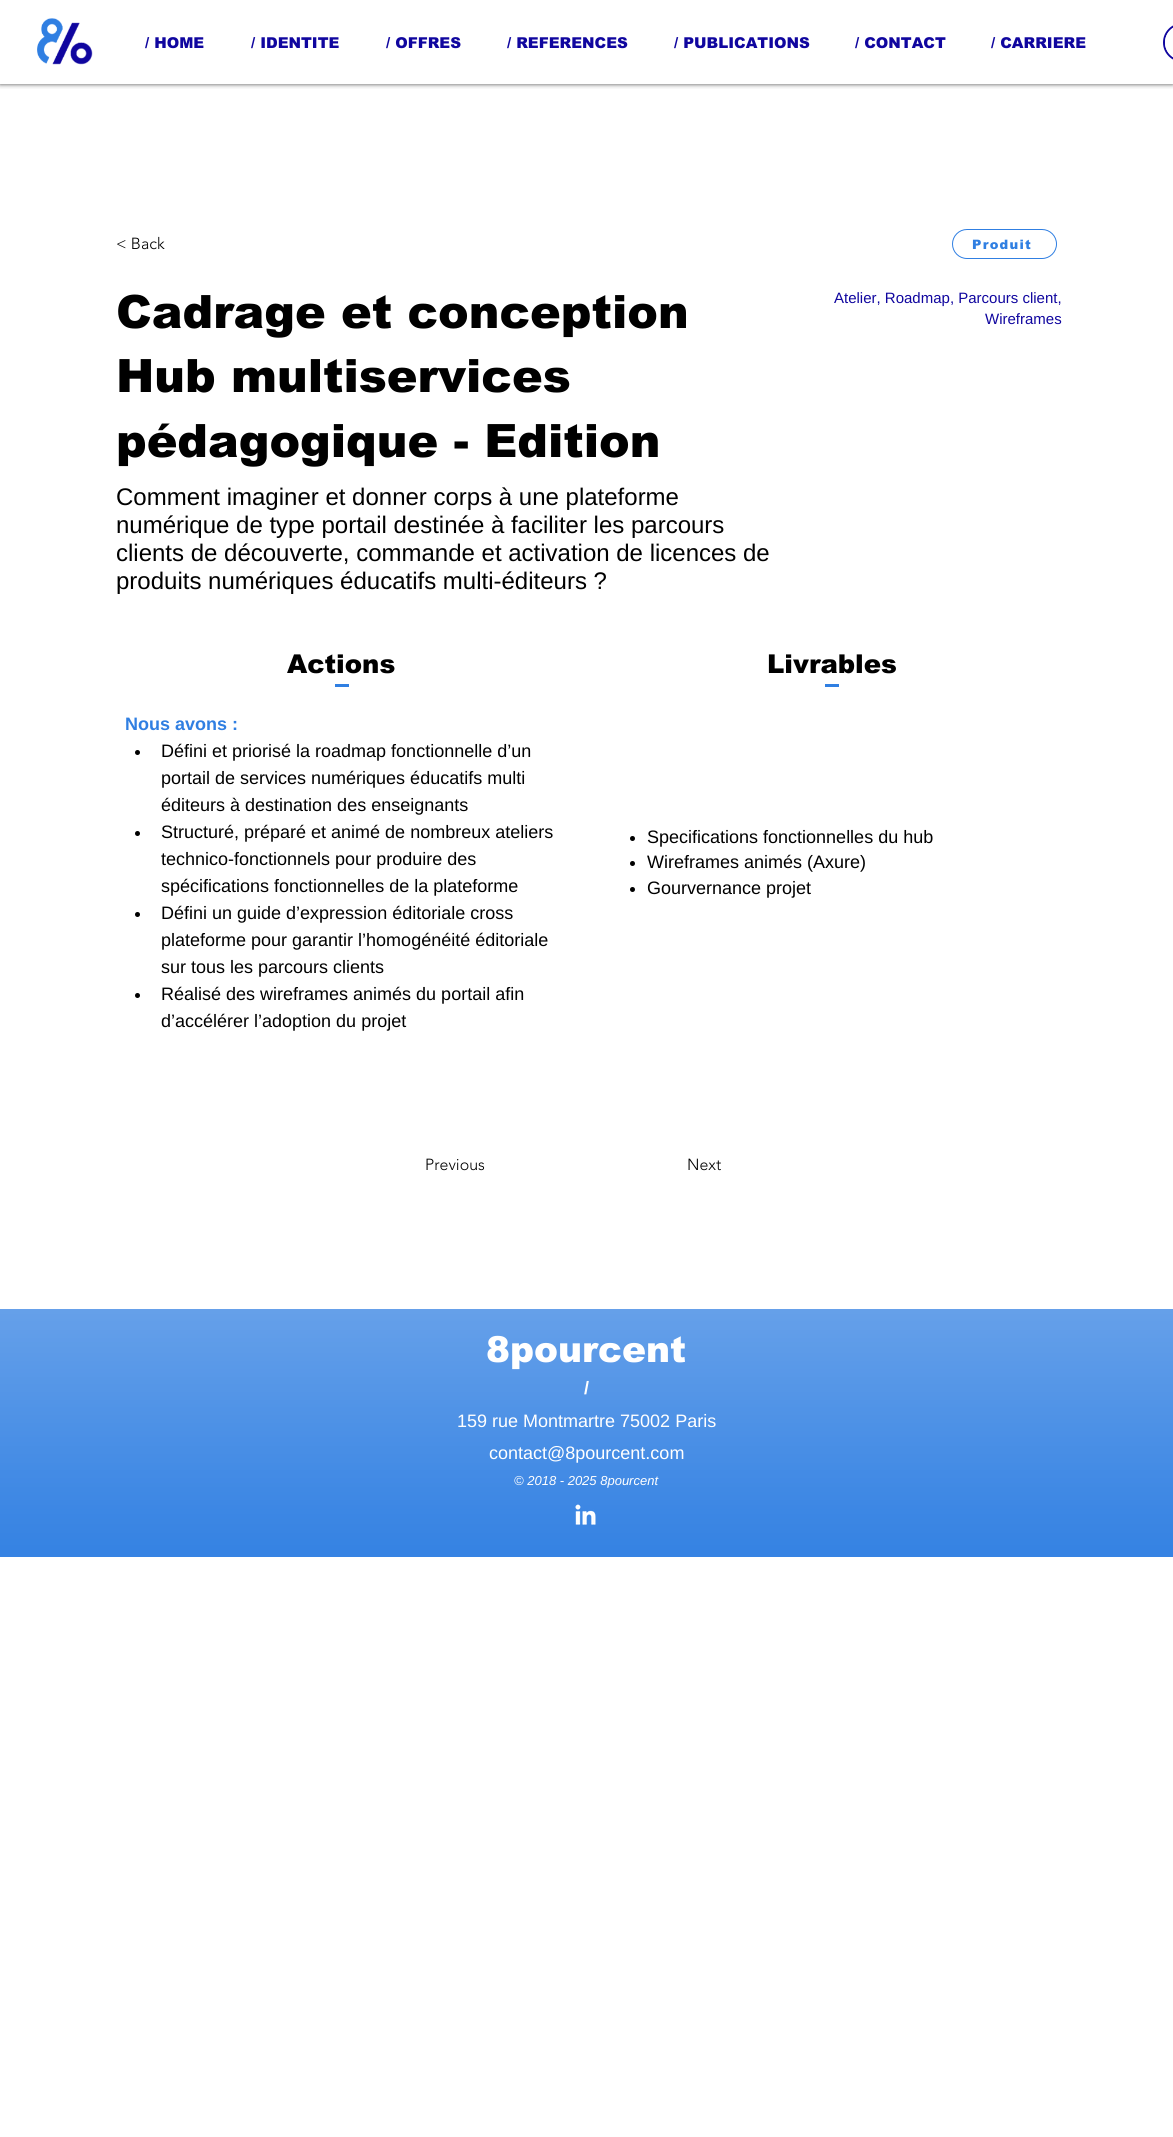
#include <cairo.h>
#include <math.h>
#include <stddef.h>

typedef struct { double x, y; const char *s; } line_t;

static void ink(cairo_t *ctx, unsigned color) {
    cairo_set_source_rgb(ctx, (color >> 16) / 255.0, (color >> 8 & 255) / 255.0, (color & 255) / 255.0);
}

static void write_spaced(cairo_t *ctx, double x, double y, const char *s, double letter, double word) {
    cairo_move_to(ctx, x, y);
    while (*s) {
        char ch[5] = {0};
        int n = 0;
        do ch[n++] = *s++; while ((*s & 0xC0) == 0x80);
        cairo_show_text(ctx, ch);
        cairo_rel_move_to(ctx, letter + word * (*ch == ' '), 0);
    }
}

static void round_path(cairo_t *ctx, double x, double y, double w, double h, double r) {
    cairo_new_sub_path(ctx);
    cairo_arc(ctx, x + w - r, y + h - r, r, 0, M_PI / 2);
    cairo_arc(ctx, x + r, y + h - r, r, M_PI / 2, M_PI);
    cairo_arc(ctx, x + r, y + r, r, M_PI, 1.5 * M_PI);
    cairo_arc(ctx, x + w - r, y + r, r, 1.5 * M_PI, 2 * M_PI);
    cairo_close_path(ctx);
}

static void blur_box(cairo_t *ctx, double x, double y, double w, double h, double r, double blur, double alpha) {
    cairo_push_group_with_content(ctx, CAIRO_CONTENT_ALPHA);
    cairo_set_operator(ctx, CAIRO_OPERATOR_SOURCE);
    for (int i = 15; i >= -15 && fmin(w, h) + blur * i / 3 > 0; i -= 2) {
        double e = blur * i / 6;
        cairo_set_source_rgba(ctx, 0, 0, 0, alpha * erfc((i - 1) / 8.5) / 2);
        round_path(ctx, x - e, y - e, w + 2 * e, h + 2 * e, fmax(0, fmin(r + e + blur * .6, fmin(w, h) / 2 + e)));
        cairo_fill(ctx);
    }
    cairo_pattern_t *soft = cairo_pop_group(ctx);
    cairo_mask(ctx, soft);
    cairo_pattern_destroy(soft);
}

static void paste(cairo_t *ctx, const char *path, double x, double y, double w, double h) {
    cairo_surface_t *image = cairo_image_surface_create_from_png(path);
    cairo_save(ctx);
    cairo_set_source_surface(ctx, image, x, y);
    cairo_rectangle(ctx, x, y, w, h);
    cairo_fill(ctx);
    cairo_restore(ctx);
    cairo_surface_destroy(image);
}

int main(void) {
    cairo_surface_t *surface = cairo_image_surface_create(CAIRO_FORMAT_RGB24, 1173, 2137);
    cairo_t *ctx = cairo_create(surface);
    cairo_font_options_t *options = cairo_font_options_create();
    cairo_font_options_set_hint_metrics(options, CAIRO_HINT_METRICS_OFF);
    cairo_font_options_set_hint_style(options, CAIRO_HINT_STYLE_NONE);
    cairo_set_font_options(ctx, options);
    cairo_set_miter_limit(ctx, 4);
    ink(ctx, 0xFFFFFF);
    cairo_paint(ctx);
    cairo_save(ctx);
    cairo_rectangle(ctx, 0, 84, 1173, 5);
    cairo_clip(ctx);
    ink(ctx, 0x000000);
    blur_box(ctx, 0, 0, 1173, 84, 0, 2.5, 0.7);
    cairo_restore(ctx);
    paste(ctx, "media/1.png", 37, 18, 56, 47);
    cairo_select_font_face(ctx, "arial Black", CAIRO_FONT_SLANT_NORMAL, CAIRO_FONT_WEIGHT_NORMAL);
    cairo_set_font_size(ctx, 15);
    ink(ctx, 0x10069F);
    {
        static const line_t items[] = {
            {145, 48, "/ HOME"},
            {251, 48, "/ IDENTITE"},
            {386, 48, "/ OFFRES"},
            {507, 48, "/ REFERENCES"},
            {674, 48, "/ PUBLICATIONS"},
            {855, 48, "/ CONTACT"},
            {991, 48, "/ CARRIERE"},
        };
        for (size_t i = 0; i < sizeof items / sizeof *items; i++) {
            cairo_move_to(ctx, items[i].x, items[i].y);
            cairo_show_text(ctx, items[i].s);
        }
    }
    round_path(ctx, 1164, 24, 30, 37, 18.5);
    cairo_stroke(ctx);
    ink(ctx, 0xFFFFFF);
    round_path(ctx, 1165, 25, 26, 35, 17.5);
    cairo_fill(ctx);
    cairo_select_font_face(ctx, "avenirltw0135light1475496 Light", CAIRO_FONT_SLANT_NORMAL, CAIRO_FONT_WEIGHT_NORMAL);
    cairo_set_font_size(ctx, 16);
    ink(ctx, 0x000000);
    cairo_move_to(ctx, 116, 249);
    cairo_show_text(ctx, "< Back");
    round_path(ctx, 952.5, 229.5, 104, 29, 14.5);
    ink(ctx, 0x307FE2);
    cairo_set_line_width(ctx, 1);
    cairo_stroke(ctx);
    cairo_select_font_face(ctx, "arial Black", CAIRO_FONT_SLANT_NORMAL, CAIRO_FONT_WEIGHT_NORMAL);
    cairo_set_font_size(ctx, 13);
    write_spaced(ctx, 972, 249, "Produit", 1.25, 0);
    cairo_set_font_size(ctx, 46);
    ink(ctx, 0x000000);
    {
        static const line_t items[] = {
            {116, 328, "Cadrage et conception"},
            {116, 392, "Hub multiservices"},
            {116, 457, "pédagogique - Edition"},
        };
        for (size_t i = 0; i < sizeof items / sizeof *items; i++) {
            cairo_move_to(ctx, items[i].x, items[i].y);
            cairo_show_text(ctx, items[i].s);
        }
    }
    cairo_select_font_face(ctx, "Liberation Sans", CAIRO_FONT_SLANT_NORMAL, CAIRO_FONT_WEIGHT_NORMAL);
    cairo_set_font_size(ctx, 15);
    ink(ctx, 0x10069F);
    cairo_move_to(ctx, 834, 303);
    cairo_show_text(ctx, "Atelier, Roadmap, Parcours client,");
    cairo_move_to(ctx, 985, 324);
    cairo_show_text(ctx, "Wireframes");
    cairo_set_font_size(ctx, 24);
    ink(ctx, 0x000000);
    {
        static const line_t items[] = {
            {116, 505, "Comment imaginer et donner corps à une plateforme"},
            {116, 533, "numérique de type portail destinée à faciliter les parcours"},
            {116, 561, "clients de découverte, commande et activation de licences de"},
            {116, 589, "produits numériques éducatifs multi-éditeurs ?"},
        };
        for (size_t i = 0; i < sizeof items / sizeof *items; i++) {
            cairo_move_to(ctx, items[i].x, items[i].y);
            cairo_show_text(ctx, items[i].s);
        }
    }
    cairo_select_font_face(ctx, "arial Black", CAIRO_FONT_SLANT_NORMAL, CAIRO_FONT_WEIGHT_NORMAL);
    cairo_set_font_size(ctx, 26);
    cairo_move_to(ctx, 287, 673);
    cairo_show_text(ctx, "Actions");
    ink(ctx, 0x307FE2);
    cairo_rectangle(ctx, 335, 684, 14, 3);
    cairo_fill(ctx);
    cairo_select_font_face(ctx, "Liberation Sans", CAIRO_FONT_SLANT_NORMAL, CAIRO_FONT_WEIGHT_BOLD);
    cairo_set_font_size(ctx, 18);
    cairo_move_to(ctx, 125, 730);
    cairo_show_text(ctx, "Nous avons :");
    ink(ctx, 0x000000);
    cairo_new_path(ctx);
    cairo_arc(ctx, 137.5, 752.5, 2.5, 0, 2 * M_PI);
    cairo_fill(ctx);
    cairo_select_font_face(ctx, "Liberation Sans", CAIRO_FONT_SLANT_NORMAL, CAIRO_FONT_WEIGHT_NORMAL);
    {
        static const line_t items[] = {
            {161, 757, "Défini et priorisé la roadmap fonctionnelle d’un"},
            {161, 784, "portail de services numériques éducatifs multi"},
            {161, 811, "éditeurs à destination des enseignants"},
        };
        for (size_t i = 0; i < sizeof items / sizeof *items; i++) {
            cairo_move_to(ctx, items[i].x, items[i].y);
            cairo_show_text(ctx, items[i].s);
        }
    }
    cairo_new_path(ctx);
    cairo_arc(ctx, 137.5, 833.5, 2.5, 0, 2 * M_PI);
    cairo_fill(ctx);
    {
        static const line_t items[] = {
            {161, 838, "Structuré, préparé et animé de nombreux ateliers"},
            {161, 865, "technico-fonctionnels pour produire des"},
            {161, 892, "spécifications fonctionnelles de la plateforme"},
        };
        for (size_t i = 0; i < sizeof items / sizeof *items; i++) {
            cairo_move_to(ctx, items[i].x, items[i].y);
            cairo_show_text(ctx, items[i].s);
        }
    }
    cairo_new_path(ctx);
    cairo_arc(ctx, 137.5, 914.5, 2.5, 0, 2 * M_PI);
    cairo_fill(ctx);
    {
        static const line_t items[] = {
            {161, 919, "Défini un guide d’expression éditoriale cross"},
            {161, 946, "plateforme pour garantir l’homogénéité éditoriale"},
            {161, 973, "sur tous les parcours clients"},
        };
        for (size_t i = 0; i < sizeof items / sizeof *items; i++) {
            cairo_move_to(ctx, items[i].x, items[i].y);
            cairo_show_text(ctx, items[i].s);
        }
    }
    cairo_new_path(ctx);
    cairo_arc(ctx, 137.5, 995.5, 2.5, 0, 2 * M_PI);
    cairo_fill(ctx);
    cairo_move_to(ctx, 161, 1000);
    cairo_show_text(ctx, "Réalisé des wireframes animés du portail afin");
    cairo_move_to(ctx, 161, 1027);
    cairo_show_text(ctx, "d’accélérer l’adoption du projet");
    cairo_select_font_face(ctx, "arial Black", CAIRO_FONT_SLANT_NORMAL, CAIRO_FONT_WEIGHT_NORMAL);
    cairo_set_font_size(ctx, 26);
    cairo_move_to(ctx, 767, 673);
    cairo_show_text(ctx, "Livrables");
    ink(ctx, 0x307FE2);
    cairo_rectangle(ctx, 825, 684, 14, 3);
    cairo_fill(ctx);
    ink(ctx, 0x000000);
    cairo_arc(ctx, 632.5, 838.5, 2.5, 0, 2 * M_PI);
    cairo_fill(ctx);
    cairo_select_font_face(ctx, "Liberation Sans", CAIRO_FONT_SLANT_NORMAL, CAIRO_FONT_WEIGHT_NORMAL);
    cairo_set_font_size(ctx, 18);
    cairo_move_to(ctx, 647, 843);
    cairo_show_text(ctx, "Specifications fonctionnelles du hub");
    cairo_new_path(ctx);
    cairo_arc(ctx, 632.5, 863.5, 2.5, 0, 2 * M_PI);
    cairo_fill(ctx);
    cairo_move_to(ctx, 647, 868);
    cairo_show_text(ctx, "Wireframes animés (Axure)");
    cairo_new_path(ctx);
    cairo_arc(ctx, 632.5, 889.5, 2.5, 0, 2 * M_PI);
    cairo_fill(ctx);
    cairo_move_to(ctx, 647, 894);
    cairo_show_text(ctx, "Gourvernance projet");
    cairo_select_font_face(ctx, "avenirltw0135light1475496 Light", CAIRO_FONT_SLANT_NORMAL, CAIRO_FONT_WEIGHT_NORMAL);
    cairo_set_font_size(ctx, 16);
    cairo_move_to(ctx, 425, 1170);
    cairo_show_text(ctx, "Previous");
    cairo_move_to(ctx, 687, 1170);
    cairo_show_text(ctx, "Next");
    ink(ctx, 0x307FE2);
    cairo_rectangle(ctx, 0, 1309, 1173, 248);
    cairo_fill(ctx);
    paste(ctx, "media/2.png", 0, 1309, 1173, 248);
    cairo_select_font_face(ctx, "arial Black", CAIRO_FONT_SLANT_NORMAL, CAIRO_FONT_WEIGHT_NORMAL);
    cairo_set_font_size(ctx, 36);
    ink(ctx, 0xFFFFFF);
    cairo_move_to(ctx, 486, 1362);
    cairo_show_text(ctx, "8pourcent");
    cairo_select_font_face(ctx, "Liberation Sans", CAIRO_FONT_SLANT_NORMAL, CAIRO_FONT_WEIGHT_BOLD);
    cairo_set_font_size(ctx, 18);
    cairo_move_to(ctx, 584, 1394);
    cairo_show_text(ctx, "/");
    cairo_select_font_face(ctx, "Liberation Sans", CAIRO_FONT_SLANT_NORMAL, CAIRO_FONT_WEIGHT_NORMAL);
    cairo_move_to(ctx, 457, 1427);
    cairo_show_text(ctx, "159 rue Montmartre 75002 Paris");
    cairo_move_to(ctx, 489, 1459);
    cairo_show_text(ctx, "contact@8pourcent.com");
    cairo_select_font_face(ctx, "Liberation Sans", CAIRO_FONT_SLANT_ITALIC, CAIRO_FONT_WEIGHT_NORMAL);
    cairo_set_font_size(ctx, 13);
    cairo_move_to(ctx, 514, 1485);
    cairo_show_text(ctx, "© 2018 - 2025 8pourcent");
    paste(ctx, "media/3.png", 575, 1504, 21, 21);
    cairo_surface_write_to_png(surface, "image.png");
    cairo_font_options_destroy(options);
    cairo_destroy(ctx);
    cairo_surface_destroy(surface);
    return 0;
}
